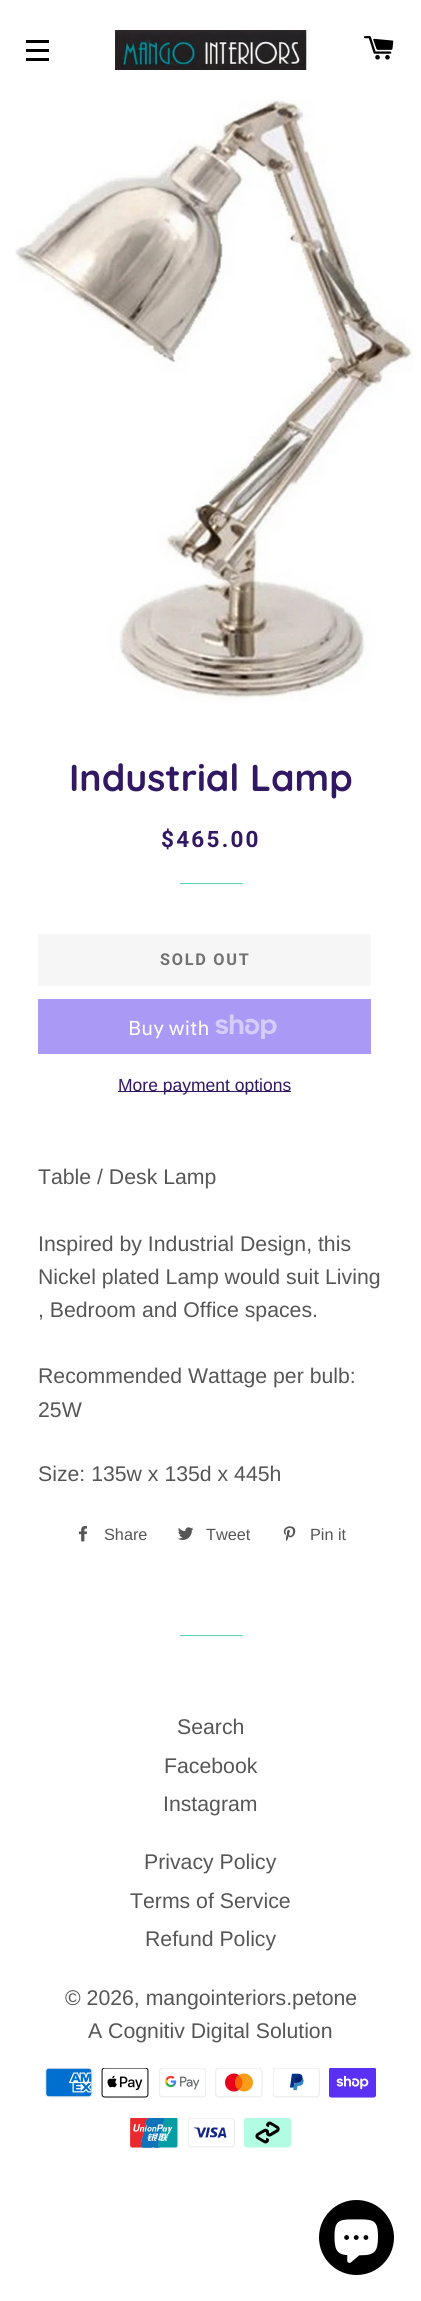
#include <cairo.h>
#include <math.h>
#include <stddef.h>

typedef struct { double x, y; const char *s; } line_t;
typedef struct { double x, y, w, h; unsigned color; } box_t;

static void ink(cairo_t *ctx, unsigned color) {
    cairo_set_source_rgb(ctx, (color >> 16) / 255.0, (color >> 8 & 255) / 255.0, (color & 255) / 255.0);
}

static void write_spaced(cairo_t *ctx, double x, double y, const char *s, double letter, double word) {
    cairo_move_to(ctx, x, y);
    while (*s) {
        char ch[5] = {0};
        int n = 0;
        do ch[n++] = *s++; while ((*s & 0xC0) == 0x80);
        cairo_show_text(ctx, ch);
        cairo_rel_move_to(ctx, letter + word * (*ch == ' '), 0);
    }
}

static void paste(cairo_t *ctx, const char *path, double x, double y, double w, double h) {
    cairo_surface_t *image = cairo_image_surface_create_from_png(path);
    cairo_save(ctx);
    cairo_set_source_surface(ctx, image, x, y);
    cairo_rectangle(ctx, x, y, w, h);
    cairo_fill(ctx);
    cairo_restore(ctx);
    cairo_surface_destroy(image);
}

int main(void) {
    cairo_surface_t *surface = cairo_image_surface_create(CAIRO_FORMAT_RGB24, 421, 2301);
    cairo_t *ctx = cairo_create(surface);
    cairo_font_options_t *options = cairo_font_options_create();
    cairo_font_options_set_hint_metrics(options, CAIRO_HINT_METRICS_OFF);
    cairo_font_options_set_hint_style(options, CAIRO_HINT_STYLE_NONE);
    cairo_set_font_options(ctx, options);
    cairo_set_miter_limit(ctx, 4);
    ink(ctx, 0xFFFFFF);
    cairo_paint(ctx);
    {
        static const box_t items[] = {
            {26, 40, 23, 3, 0x000000},
            {26, 49, 23, 3, 0x000000},
            {26, 58, 23, 3, 0x000000},
        };
        for (size_t i = 0; i < sizeof items / sizeof *items; i++) {
            ink(ctx, items[i].color);
            cairo_rectangle(ctx, items[i].x, items[i].y, items[i].w, items[i].h);
            cairo_fill(ctx);
        }
    }
    paste(ctx, "media/1.png", 115, 30, 192, 40);
    paste(ctx, "media/2.png", 364, 36, 30, 24);
    paste(ctx, "media/3.png", 15, 100, 398, 602);
    cairo_select_font_face(ctx, "Quicksand", CAIRO_FONT_SLANT_NORMAL, CAIRO_FONT_WEIGHT_BOLD);
    cairo_set_font_size(ctx, 37.5);
    ink(ctx, 0x321863);
    cairo_move_to(ctx, 69, 791);
    cairo_show_text(ctx, "Industrial Lamp");
    cairo_select_font_face(ctx, "Roboto", CAIRO_FONT_SLANT_NORMAL, CAIRO_FONT_WEIGHT_BOLD);
    cairo_set_font_size(ctx, 22.5);
    write_spaced(ctx, 161, 847, "$465.00", 2.25, 0);
    ink(ctx, 0x5DD2B4);
    cairo_rectangle(ctx, 180, 883, 63, 1);
    cairo_fill(ctx);
    ink(ctx, 0xF6F6F6);
    cairo_rectangle(ctx, 38, 934, 333, 52);
    cairo_fill(ctx);
    cairo_set_font_size(ctx, 16.25);
    ink(ctx, 0x717171);
    write_spaced(ctx, 160, 965, "SOLD OUT", 1.75, 0);
    ink(ctx, 0xAA99F5);
    cairo_rectangle(ctx, 38, 999, 333, 55);
    cairo_fill(ctx);
    cairo_select_font_face(ctx, "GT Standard", CAIRO_FONT_SLANT_NORMAL, CAIRO_FONT_WEIGHT_NORMAL);
    cairo_set_font_size(ctx, 20);
    ink(ctx, 0xFFFFFF);
    cairo_move_to(ctx, 128, 1035);
    cairo_show_text(ctx, "Buy with");
    paste(ctx, "media/4.png", 215, 1014, 62, 25);
    ink(ctx, 0x321863);
    cairo_rectangle(ctx, 118, 1091, 173, 1);
    cairo_fill(ctx);
    cairo_select_font_face(ctx, "Liberation Sans", CAIRO_FONT_SLANT_NORMAL, CAIRO_FONT_WEIGHT_NORMAL);
    cairo_set_font_size(ctx, 17.5);
    cairo_move_to(ctx, 118, 1091);
    cairo_show_text(ctx, "More payment options");
    cairo_set_font_size(ctx, 21.25);
    ink(ctx, 0x565656);
    {
        static const line_t items[] = {
            {38, 1184, "Table / Desk Lamp"},
            {38, 1251, "Inspired by Industrial Design, this"},
            {38, 1284, "Nickel plated Lamp would suit Living"},
            {38, 1317, ", Bedroom and Office spaces."},
            {38, 1383, "Recommended Wattage per bulb:"},
            {38, 1417, "25W"},
            {38, 1481, "Size: 135w x 135d x 445h"},
        };
        for (size_t i = 0; i < sizeof items / sizeof *items; i++) {
            cairo_move_to(ctx, items[i].x, items[i].y);
            cairo_show_text(ctx, items[i].s);
        }
    }
    paste(ctx, "media/5.png", 78, 1526, 10, 16);
    cairo_set_font_size(ctx, 16.25);
    cairo_move_to(ctx, 104, 1540);
    cairo_show_text(ctx, "Share");
    paste(ctx, "media/6.png", 178, 1527, 16, 13);
    cairo_move_to(ctx, 206, 1540);
    cairo_show_text(ctx, "Tweet");
    paste(ctx, "media/7.png", 283, 1526, 13, 16);
    cairo_move_to(ctx, 310, 1540);
    cairo_show_text(ctx, "Pin it");
    ink(ctx, 0x5DD2B4);
    cairo_rectangle(ctx, 180, 1635, 63, 1);
    cairo_fill(ctx);
    cairo_set_font_size(ctx, 21.25);
    ink(ctx, 0x565656);
    {
        static const line_t items[] = {
            {177, 1734, "Search"},
            {164, 1773, "Facebook"},
            {163, 1811, "Instagram"},
            {144, 1869, "Privacy Policy"},
            {130, 1908, "Terms of Service"},
            {145, 1946, "Refund Policy"},
            {65, 2005, "© 2026, mangointeriors.petone"},
            {88, 2038, "A Cognitiv Digital Solution"},
        };
        for (size_t i = 0; i < sizeof items / sizeof *items; i++) {
            cairo_move_to(ctx, items[i].x, items[i].y);
            cairo_show_text(ctx, items[i].s);
        }
    }
    paste(ctx, "media/8.png", 45, 2068, 48, 30);
    paste(ctx, "media/9.png", 101, 2068, 48, 30);
    paste(ctx, "media/10.png", 159, 2068, 47, 30);
    paste(ctx, "media/11.png", 215, 2068, 48, 30);
    paste(ctx, "media/12.png", 273, 2068, 47, 30);
    paste(ctx, "media/13.png", 329, 2068, 47, 30);
    paste(ctx, "media/14.png", 130, 2118, 48, 30);
    paste(ctx, "media/15.png", 188, 2118, 47, 30);
    paste(ctx, "media/16.png", 244, 2118, 47, 30);
    ink(ctx, 0x000000);
    cairo_arc(ctx, 356.5, 2237.5, 37.5, 0, 2 * M_PI);
    cairo_fill(ctx);
    paste(ctx, "media/17.png", 334, 2219, 44, 44);
    cairo_surface_write_to_png(surface, "image.png");
    cairo_font_options_destroy(options);
    cairo_destroy(ctx);
    cairo_surface_destroy(surface);
    return 0;
}
